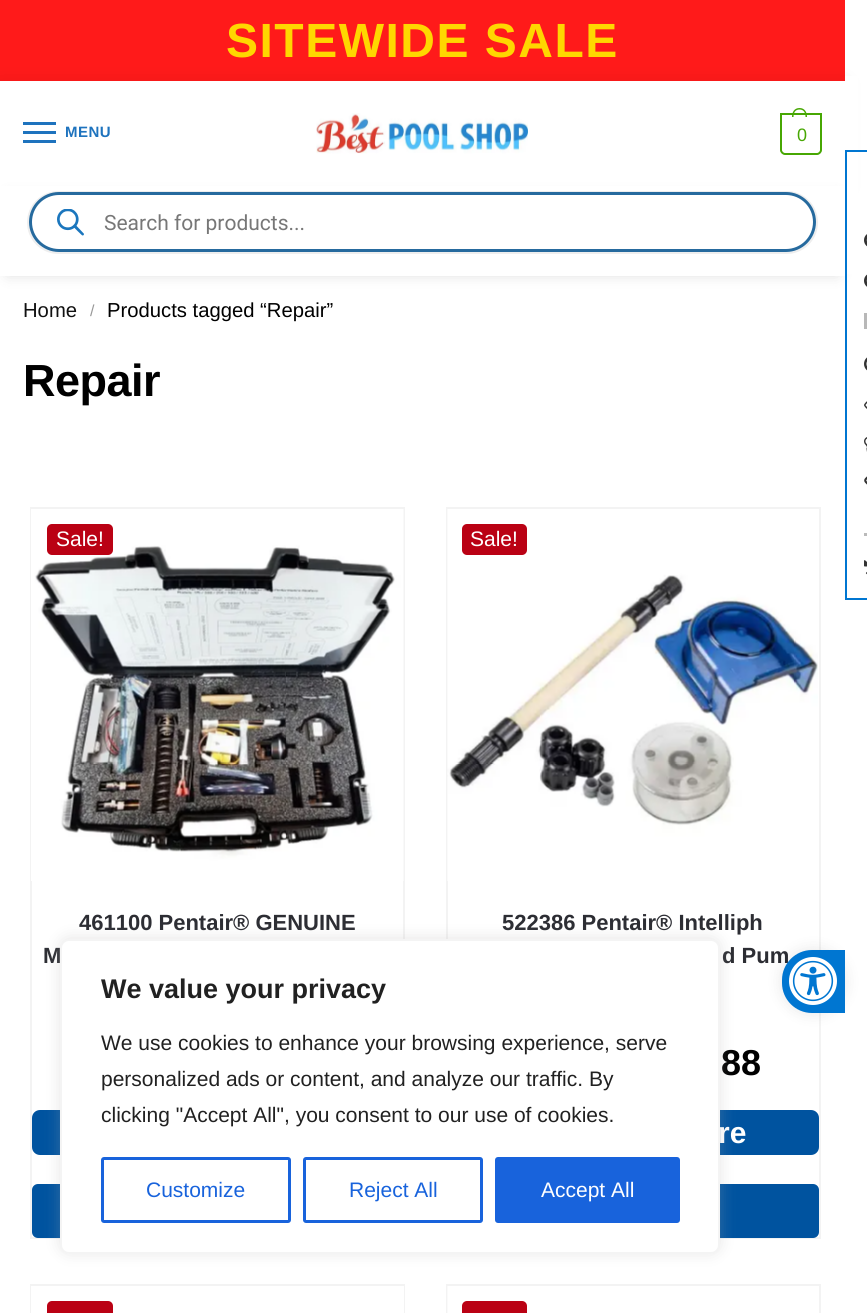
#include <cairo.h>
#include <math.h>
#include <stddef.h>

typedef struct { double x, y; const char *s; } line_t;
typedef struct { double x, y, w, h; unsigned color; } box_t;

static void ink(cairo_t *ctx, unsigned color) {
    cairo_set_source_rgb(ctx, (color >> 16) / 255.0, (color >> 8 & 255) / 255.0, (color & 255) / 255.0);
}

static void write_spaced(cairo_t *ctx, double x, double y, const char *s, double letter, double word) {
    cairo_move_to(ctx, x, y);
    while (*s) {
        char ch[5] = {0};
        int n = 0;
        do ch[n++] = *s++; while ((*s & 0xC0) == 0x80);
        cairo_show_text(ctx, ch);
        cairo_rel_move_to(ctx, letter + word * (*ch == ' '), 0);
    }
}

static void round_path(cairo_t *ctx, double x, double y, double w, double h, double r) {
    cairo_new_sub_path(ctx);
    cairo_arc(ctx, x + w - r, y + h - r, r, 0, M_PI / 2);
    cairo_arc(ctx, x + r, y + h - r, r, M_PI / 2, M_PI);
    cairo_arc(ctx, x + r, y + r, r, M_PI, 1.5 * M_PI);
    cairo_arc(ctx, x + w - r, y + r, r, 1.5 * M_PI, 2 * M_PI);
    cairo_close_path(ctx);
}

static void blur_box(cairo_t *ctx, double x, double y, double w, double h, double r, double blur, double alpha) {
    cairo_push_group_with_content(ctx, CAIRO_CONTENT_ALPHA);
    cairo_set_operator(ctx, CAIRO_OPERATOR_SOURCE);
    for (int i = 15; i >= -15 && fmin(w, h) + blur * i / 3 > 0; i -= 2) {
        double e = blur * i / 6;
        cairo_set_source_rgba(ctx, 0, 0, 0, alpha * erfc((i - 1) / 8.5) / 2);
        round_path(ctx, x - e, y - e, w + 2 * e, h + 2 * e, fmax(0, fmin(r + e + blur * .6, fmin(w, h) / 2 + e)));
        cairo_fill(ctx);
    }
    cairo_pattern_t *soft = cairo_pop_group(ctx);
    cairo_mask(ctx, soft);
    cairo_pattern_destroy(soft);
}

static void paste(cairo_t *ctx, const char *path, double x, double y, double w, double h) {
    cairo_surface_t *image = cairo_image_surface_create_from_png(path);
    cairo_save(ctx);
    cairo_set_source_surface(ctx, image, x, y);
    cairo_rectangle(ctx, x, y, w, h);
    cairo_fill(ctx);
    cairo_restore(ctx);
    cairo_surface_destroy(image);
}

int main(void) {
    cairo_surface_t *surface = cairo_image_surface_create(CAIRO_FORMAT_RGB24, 867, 1313);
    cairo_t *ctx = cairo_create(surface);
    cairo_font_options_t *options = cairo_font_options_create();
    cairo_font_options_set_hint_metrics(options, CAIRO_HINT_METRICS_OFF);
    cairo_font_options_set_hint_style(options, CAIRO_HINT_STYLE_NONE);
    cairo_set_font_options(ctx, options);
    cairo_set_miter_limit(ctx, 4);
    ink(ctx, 0xFFFFFF);
    cairo_paint(ctx);
    ink(ctx, 0xFF1A1A);
    cairo_rectangle(ctx, 0, 0, 845, 81);
    cairo_fill(ctx);
    cairo_select_font_face(ctx, "Liberation Sans", CAIRO_FONT_SLANT_NORMAL, CAIRO_FONT_WEIGHT_BOLD);
    cairo_set_font_size(ctx, 48);
    ink(ctx, 0xFFD700);
    write_spaced(ctx, 226, 57, "SITEWIDE SALE", 1.5, 0);
    ink(ctx, 0x000000);
    blur_box(ctx, 0, 83, 845, 105, 0, 11, 0.08);
    {
        static const box_t items[] = {
            {0, 81, 845, 105, 0xFFFFFF},
            {23, 122, 33, 3, 0x1E73BE},
            {23, 131, 33, 3, 0x1E73BE},
        };
        for (size_t i = 0; i < sizeof items / sizeof *items; i++) {
            ink(ctx, items[i].color);
            cairo_rectangle(ctx, items[i].x, items[i].y, items[i].w, items[i].h);
            cairo_fill(ctx);
        }
    }
    cairo_set_font_size(ctx, 15);
    write_spaced(ctx, 65, 137, "MENU", 0.5, 0);
    cairo_rectangle(ctx, 23, 140, 33, 3);
    cairo_fill(ctx);
    paste(ctx, "media/1.png", 316, 113, 212, 41);
    cairo_new_path(ctx);
    cairo_move_to(ctx, 781, 114);
    cairo_line_to(ctx, 821, 114);
    cairo_line_to(ctx, 821, 150);
    cairo_curve_to(ctx, 821, 152, 819, 154, 817, 154);
    cairo_line_to(ctx, 785, 154);
    cairo_curve_to(ctx, 783, 154, 781, 152, 781, 150);
    cairo_close_path(ctx);
    ink(ctx, 0x47A703);
    cairo_stroke(ctx);
    cairo_set_fill_rule(ctx, CAIRO_FILL_RULE_EVEN_ODD);
    cairo_new_path(ctx);
    cairo_move_to(ctx, 799.5, 108);
    cairo_curve_to(ctx, 805, 108, 807, 112.5, 807, 117);
    cairo_line_to(ctx, 792, 117);
    cairo_curve_to(ctx, 792, 112.5, 794, 108, 799.5, 108);
    cairo_close_path(ctx);
    cairo_move_to(ctx, 799.5, 109.5);
    cairo_curve_to(ctx, 804, 109.5, 805.5, 113, 805.5, 117);
    cairo_line_to(ctx, 793.5, 117);
    cairo_curve_to(ctx, 793.5, 113, 795, 109.5, 799.5, 109.5);
    cairo_close_path(ctx);
    cairo_fill(ctx);
    cairo_select_font_face(ctx, "Liberation Sans", CAIRO_FONT_SLANT_NORMAL, CAIRO_FONT_WEIGHT_NORMAL);
    cairo_set_font_size(ctx, 18);
    write_spaced(ctx, 797, 141, "0", -1, 0);
    ink(ctx, 0x000000);
    blur_box(ctx, 8, 198, 829, 75, 0, 7.5, 0.18);
    ink(ctx, 0xFFFFFF);
    cairo_rectangle(ctx, 0, 186, 845, 90);
    cairo_fill(ctx);
    round_path(ctx, 28, 192, 789, 61, 30.5);
    ink(ctx, 0xEEEEEE);
    cairo_stroke(ctx);
    ink(ctx, 0xFFFFFF);
    round_path(ctx, 30.5, 193.5, 784, 57, 28.5);
    cairo_fill_preserve(ctx);
    ink(ctx, 0x266A9E);
    cairo_set_line_width(ctx, 3);
    cairo_stroke(ctx);
    paste(ctx, "media/2.png", 57, 209, 27, 27);
    cairo_save(ctx);
    cairo_set_fill_rule(ctx, CAIRO_FILL_RULE_WINDING);
    cairo_rectangle(ctx, 104, 210, 673, 24);
    cairo_clip(ctx);
    cairo_select_font_face(ctx, "Roboto", CAIRO_FONT_SLANT_NORMAL, CAIRO_FONT_WEIGHT_NORMAL);
    cairo_set_font_size(ctx, 21);
    ink(ctx, 0x777777);
    cairo_move_to(ctx, 104, 230);
    cairo_show_text(ctx, "Search for products...");
    cairo_restore(ctx);
    ink(ctx, 0xFFFFFF);
    cairo_rectangle(ctx, 845, 76, 13, 198);
    cairo_fill(ctx);
    cairo_set_font_size(ctx, 20.25);
    ink(ctx, 0x111111);
    cairo_move_to(ctx, 23, 317);
    cairo_show_text(ctx, "Home");
    cairo_set_font_size(ctx, 16);
    ink(ctx, 0x999999);
    cairo_move_to(ctx, 90, 316);
    cairo_show_text(ctx, "/");
    cairo_set_font_size(ctx, 20.25);
    ink(ctx, 0x000000);
    cairo_move_to(ctx, 107, 317);
    cairo_show_text(ctx, "Products tagged “Repair”");
    cairo_select_font_face(ctx, "Liberation Sans", CAIRO_FONT_SLANT_NORMAL, CAIRO_FONT_WEIGHT_BOLD);
    cairo_set_font_size(ctx, 45);
    write_spaced(ctx, 23, 396, "Repair", -0.5, 0);
    cairo_rectangle(ctx, 31, 508, 373, 730);
    ink(ctx, 0xF3F3F3);
    cairo_set_line_width(ctx, 2);
    cairo_stroke(ctx);
    paste(ctx, "media/3.png", 31, 509, 373, 372);
    ink(ctx, 0xBA0114);
    round_path(ctx, 47, 524, 66, 31, 5);
    cairo_fill(ctx);
    cairo_select_font_face(ctx, "Liberation Sans", CAIRO_FONT_SLANT_NORMAL, CAIRO_FONT_WEIGHT_NORMAL);
    cairo_set_font_size(ctx, 21);
    ink(ctx, 0xFFFFFF);
    cairo_move_to(ctx, 56, 546);
    cairo_show_text(ctx, "Sale!");
    cairo_select_font_face(ctx, "Liberation Sans", CAIRO_FONT_SLANT_NORMAL, CAIRO_FONT_WEIGHT_BOLD);
    cairo_set_font_size(ctx, 22);
    ink(ctx, 0x2C2D33);
    cairo_move_to(ctx, 79, 930);
    cairo_show_text(ctx, "461100 Pentair® GENUINE");
    cairo_move_to(ctx, 43, 963);
    cairo_show_text(ctx, "M");
    ink(ctx, 0x00539F);
    round_path(ctx, 32, 1110, 372, 45, 8);
    cairo_fill(ctx);
    round_path(ctx, 32, 1184, 372, 54, 6);
    cairo_fill(ctx);
    cairo_rectangle(ctx, 447, 508, 373, 730);
    ink(ctx, 0xF3F3F3);
    cairo_stroke(ctx);
    paste(ctx, "media/4.png", 447, 509, 371, 372);
    ink(ctx, 0xBA0114);
    round_path(ctx, 462, 524, 65, 31, 5);
    cairo_fill(ctx);
    cairo_select_font_face(ctx, "Liberation Sans", CAIRO_FONT_SLANT_NORMAL, CAIRO_FONT_WEIGHT_NORMAL);
    cairo_set_font_size(ctx, 21);
    ink(ctx, 0xFFFFFF);
    cairo_move_to(ctx, 470, 546);
    cairo_show_text(ctx, "Sale!");
    cairo_select_font_face(ctx, "Liberation Sans", CAIRO_FONT_SLANT_NORMAL, CAIRO_FONT_WEIGHT_BOLD);
    cairo_set_font_size(ctx, 22);
    ink(ctx, 0x2C2D33);
    cairo_move_to(ctx, 502, 930);
    cairo_show_text(ctx, "522386 Pentair® Intelliph");
    cairo_move_to(ctx, 722, 963);
    cairo_show_text(ctx, "d Pum");
    cairo_set_font_size(ctx, 36);
    ink(ctx, 0x000000);
    cairo_move_to(ctx, 721, 1075);
    cairo_show_text(ctx, "88");
    ink(ctx, 0x00539F);
    round_path(ctx, 447, 1110, 372, 45, 8);
    cairo_fill(ctx);
    cairo_set_font_size(ctx, 30);
    ink(ctx, 0xFFFFFF);
    cairo_move_to(ctx, 718, 1143);
    cairo_show_text(ctx, "re");
    ink(ctx, 0x00539F);
    round_path(ctx, 447, 1184, 372, 54, 6);
    cairo_fill(ctx);
    cairo_rectangle(ctx, 31, 1285, 373, 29);
    ink(ctx, 0xF3F3F3);
    cairo_stroke(ctx);
    ink(ctx, 0xFFFFFF);
    cairo_rectangle(ctx, 31, 1286, 373, 27);
    cairo_fill(ctx);
    ink(ctx, 0xBA0114);
    round_path(ctx, 47, 1301, 66, 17, 5);
    cairo_fill(ctx);
    cairo_rectangle(ctx, 447, 1285, 373, 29);
    ink(ctx, 0xF3F3F3);
    cairo_stroke(ctx);
    ink(ctx, 0xFAFAFA);
    cairo_rectangle(ctx, 447, 1286, 1, 27);
    cairo_fill(ctx);
    ink(ctx, 0xBA0114);
    round_path(ctx, 462, 1301, 65, 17, 5);
    cairo_fill(ctx);
    cairo_rectangle(ctx, 846, 151, 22, 448);
    ink(ctx, 0x0076D1);
    cairo_stroke(ctx);
    paste(ctx, "media/5.png", 864, 234, 3, 13);
    paste(ctx, "media/6.png", 864, 274, 3, 13);
    ink(ctx, 0xB8B8B8);
    cairo_rectangle(ctx, 864, 313, 3, 16);
    cairo_fill(ctx);
    paste(ctx, "media/7.png", 864, 357, 3, 14);
    paste(ctx, "media/8.png", 864, 401, 3, 8);
    paste(ctx, "media/9.png", 864, 437, 3, 15);
    paste(ctx, "media/10.png", 864, 476, 3, 9);
    ink(ctx, 0xBABABA);
    cairo_rectangle(ctx, 864, 533, 3, 3);
    cairo_fill(ctx);
    paste(ctx, "media/11.png", 864, 560, 3, 15);
    ink(ctx, 0x000000);
    blur_box(ctx, 782, 950, 63, 63, 30, 7.5, 0.1);
    ink(ctx, 0x0076D1);
    cairo_new_path(ctx);
    cairo_move_to(ctx, 812, 950);
    cairo_line_to(ctx, 845, 950);
    cairo_line_to(ctx, 845, 1013);
    cairo_line_to(ctx, 812, 1013);
    cairo_curve_to(ctx, 795.5, 1013, 782, 999.5, 782, 983);
    cairo_line_to(ctx, 782, 980);
    cairo_curve_to(ctx, 782, 963.5, 795.5, 950, 812, 950);
    cairo_close_path(ctx);
    cairo_fill(ctx);
    paste(ctx, "media/12.png", 789, 957, 48, 48);
    ink(ctx, 0xACABAB);
    blur_box(ctx, 60, 938, 660, 315, 9, 7.5, 0.3);
    ink(ctx, 0xFFFFFF);
    round_path(ctx, 61, 940, 658, 313, 8);
    cairo_fill_preserve(ctx);
    ink(ctx, 0xF4F4F4);
    cairo_stroke(ctx);
    cairo_set_font_size(ctx, 27);
    ink(ctx, 0x212121);
    cairo_move_to(ctx, 101, 998);
    cairo_show_text(ctx, "We value your privacy");
    cairo_select_font_face(ctx, "Liberation Sans", CAIRO_FONT_SLANT_NORMAL, CAIRO_FONT_WEIGHT_NORMAL);
    cairo_set_font_size(ctx, 21);
    {
        static const line_t items[] = {
            {101, 1050, "We use cookies to enhance your browsing experience, serve"},
            {101, 1086, "personalized ads or content, and analyze our traffic. By"},
            {101, 1122, "clicking \"Accept All\", you consent to our use of cookies."},
        };
        for (size_t i = 0; i < sizeof items / sizeof *items; i++) {
            cairo_move_to(ctx, items[i].x, items[i].y);
            cairo_show_text(ctx, items[i].s);
        }
    }
    round_path(ctx, 102.5, 1158.5, 187, 63, 1.5);
    ink(ctx, 0x1863DC);
    cairo_set_line_width(ctx, 3);
    cairo_stroke(ctx);
    cairo_move_to(ctx, 146, 1197);
    cairo_show_text(ctx, "Customize");
    round_path(ctx, 304.5, 1158.5, 177, 63, 1.5);
    cairo_stroke(ctx);
    cairo_move_to(ctx, 349, 1197);
    cairo_show_text(ctx, "Reject All");
    round_path(ctx, 496.5, 1158.5, 182, 63, 1.5);
    cairo_fill_preserve(ctx);
    cairo_stroke(ctx);
    ink(ctx, 0xFFFFFF);
    cairo_move_to(ctx, 541, 1197);
    cairo_show_text(ctx, "Accept All");
    cairo_surface_write_to_png(surface, "image.png");
    cairo_font_options_destroy(options);
    cairo_destroy(ctx);
    cairo_surface_destroy(surface);
    return 0;
}
